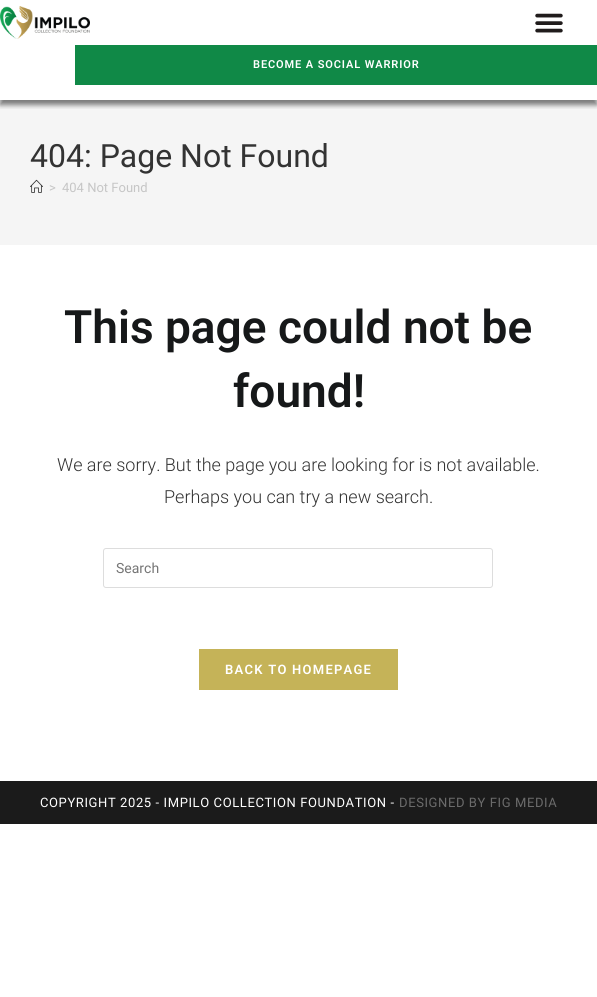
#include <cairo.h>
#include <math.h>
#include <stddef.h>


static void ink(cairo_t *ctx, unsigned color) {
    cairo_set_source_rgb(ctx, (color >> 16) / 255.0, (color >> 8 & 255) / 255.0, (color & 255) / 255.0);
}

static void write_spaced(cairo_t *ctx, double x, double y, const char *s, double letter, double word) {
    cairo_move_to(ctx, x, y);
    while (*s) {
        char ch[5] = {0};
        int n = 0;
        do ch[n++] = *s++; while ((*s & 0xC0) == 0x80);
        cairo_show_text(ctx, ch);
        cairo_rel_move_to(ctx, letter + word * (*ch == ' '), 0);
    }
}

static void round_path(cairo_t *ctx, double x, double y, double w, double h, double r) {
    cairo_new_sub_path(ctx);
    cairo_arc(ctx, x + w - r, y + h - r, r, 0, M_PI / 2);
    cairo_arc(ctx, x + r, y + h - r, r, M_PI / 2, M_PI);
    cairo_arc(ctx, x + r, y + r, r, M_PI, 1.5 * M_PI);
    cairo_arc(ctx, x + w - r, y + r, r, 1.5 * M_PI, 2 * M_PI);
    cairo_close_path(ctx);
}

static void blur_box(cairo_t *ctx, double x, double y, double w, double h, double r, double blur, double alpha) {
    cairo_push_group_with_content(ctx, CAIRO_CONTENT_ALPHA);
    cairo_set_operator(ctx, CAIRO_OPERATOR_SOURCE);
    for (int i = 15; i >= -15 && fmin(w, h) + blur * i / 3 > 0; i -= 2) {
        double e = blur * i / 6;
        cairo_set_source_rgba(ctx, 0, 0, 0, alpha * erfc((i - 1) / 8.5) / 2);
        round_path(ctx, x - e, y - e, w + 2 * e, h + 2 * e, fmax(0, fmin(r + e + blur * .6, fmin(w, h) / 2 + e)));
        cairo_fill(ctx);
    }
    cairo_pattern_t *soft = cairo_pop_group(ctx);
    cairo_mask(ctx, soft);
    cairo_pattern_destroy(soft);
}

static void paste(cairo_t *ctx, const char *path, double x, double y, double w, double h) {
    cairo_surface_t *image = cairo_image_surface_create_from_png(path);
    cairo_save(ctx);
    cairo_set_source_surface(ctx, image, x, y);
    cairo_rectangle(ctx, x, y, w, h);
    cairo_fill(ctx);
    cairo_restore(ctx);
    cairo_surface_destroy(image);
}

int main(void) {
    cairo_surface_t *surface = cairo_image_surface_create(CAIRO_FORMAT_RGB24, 597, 997);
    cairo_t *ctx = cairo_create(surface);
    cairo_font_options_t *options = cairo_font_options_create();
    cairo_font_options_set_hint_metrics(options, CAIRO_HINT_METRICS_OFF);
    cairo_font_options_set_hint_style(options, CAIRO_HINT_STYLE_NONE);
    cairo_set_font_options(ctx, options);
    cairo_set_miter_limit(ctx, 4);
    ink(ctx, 0xFFFFFF);
    cairo_paint(ctx);
    ink(ctx, 0xF5F5F5);
    cairo_rectangle(ctx, 0, 100, 597, 145);
    cairo_fill(ctx);
    cairo_save(ctx);
    cairo_rectangle(ctx, 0, 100, 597, 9);
    cairo_clip(ctx);
    ink(ctx, 0x000000);
    blur_box(ctx, 0, 5, 597, 100, 0, 2.5, 0.5);
    cairo_restore(ctx);
    paste(ctx, "media/1.png", 0, 6, 90, 33);
    paste(ctx, "media/2.png", 535, 13, 28, 20);
    ink(ctx, 0x108947);
    cairo_rectangle(ctx, 75, 45, 522, 40);
    cairo_fill(ctx);
    cairo_select_font_face(ctx, "Roboto SemiBold", CAIRO_FONT_SLANT_NORMAL, CAIRO_FONT_WEIGHT_NORMAL);
    cairo_set_font_size(ctx, 11);
    ink(ctx, 0xFFFFFF);
    write_spaced(ctx, 253, 68, "BECOME A SOCIAL WARRIOR", 0.9, 0);
    cairo_select_font_face(ctx, "Roboto", CAIRO_FONT_SLANT_NORMAL, CAIRO_FONT_WEIGHT_NORMAL);
    cairo_set_font_size(ctx, 32);
    ink(ctx, 0x333333);
    cairo_move_to(ctx, 30, 167);
    cairo_show_text(ctx, "404: Page Not Found");
    paste(ctx, "media/3.png", 30, 179, 13, 14);
    cairo_set_font_size(ctx, 13);
    ink(ctx, 0xC6C6C6);
    cairo_move_to(ctx, 49, 192);
    cairo_show_text(ctx, ">");
    cairo_move_to(ctx, 62, 192);
    cairo_show_text(ctx, "404 Not Found");
    cairo_select_font_face(ctx, "Roboto SemiBold", CAIRO_FONT_SLANT_NORMAL, CAIRO_FONT_WEIGHT_NORMAL);
    cairo_set_font_size(ctx, 46);
    ink(ctx, 0x161819);
    cairo_move_to(ctx, 64, 343);
    cairo_show_text(ctx, "This page could not be");
    cairo_move_to(ctx, 233, 407);
    cairo_show_text(ctx, "found!");
    cairo_select_font_face(ctx, "Roboto Light", CAIRO_FONT_SLANT_NORMAL, CAIRO_FONT_WEIGHT_NORMAL);
    cairo_set_font_size(ctx, 18);
    ink(ctx, 0x333333);
    cairo_move_to(ctx, 57, 471);
    cairo_show_text(ctx, "We are sorry. But the page you are looking for is not available.");
    cairo_move_to(ctx, 164, 503);
    cairo_show_text(ctx, "Perhaps you can try a new search.");
    round_path(ctx, 103.5, 548.5, 389, 39, 2.5);
    ink(ctx, 0xDDDDDD);
    cairo_set_line_width(ctx, 1);
    cairo_stroke(ctx);
    cairo_select_font_face(ctx, "Roboto", CAIRO_FONT_SLANT_NORMAL, CAIRO_FONT_WEIGHT_NORMAL);
    cairo_set_font_size(ctx, 14);
    ink(ctx, 0x757575);
    cairo_move_to(ctx, 116, 573);
    cairo_show_text(ctx, "Search");
    ink(ctx, 0xC5B358);
    cairo_rectangle(ctx, 199, 649, 199, 41);
    cairo_fill(ctx);
    cairo_select_font_face(ctx, "Roboto SemiBold", CAIRO_FONT_SLANT_NORMAL, CAIRO_FONT_WEIGHT_NORMAL);
    cairo_set_font_size(ctx, 13);
    ink(ctx, 0xFFFFFF);
    write_spaced(ctx, 225, 674, "BACK TO HOMEPAGE", 1.25, 0);
    ink(ctx, 0x1B1B1B);
    cairo_rectangle(ctx, 0, 781, 597, 43);
    cairo_fill(ctx);
    cairo_select_font_face(ctx, "Roboto", CAIRO_FONT_SLANT_NORMAL, CAIRO_FONT_WEIGHT_NORMAL);
    ink(ctx, 0xFFFFFF);
    write_spaced(ctx, 40, 807, "COPYRIGHT 2025 - IMPILO COLLECTION FOUNDATION -", 0.6, 0);
    ink(ctx, 0x6B6B6B);
    write_spaced(ctx, 399, 807, "DESIGNED BY FIG MEDIA", 0.6, 0);
    cairo_surface_write_to_png(surface, "image.png");
    cairo_font_options_destroy(options);
    cairo_destroy(ctx);
    cairo_surface_destroy(surface);
    return 0;
}
